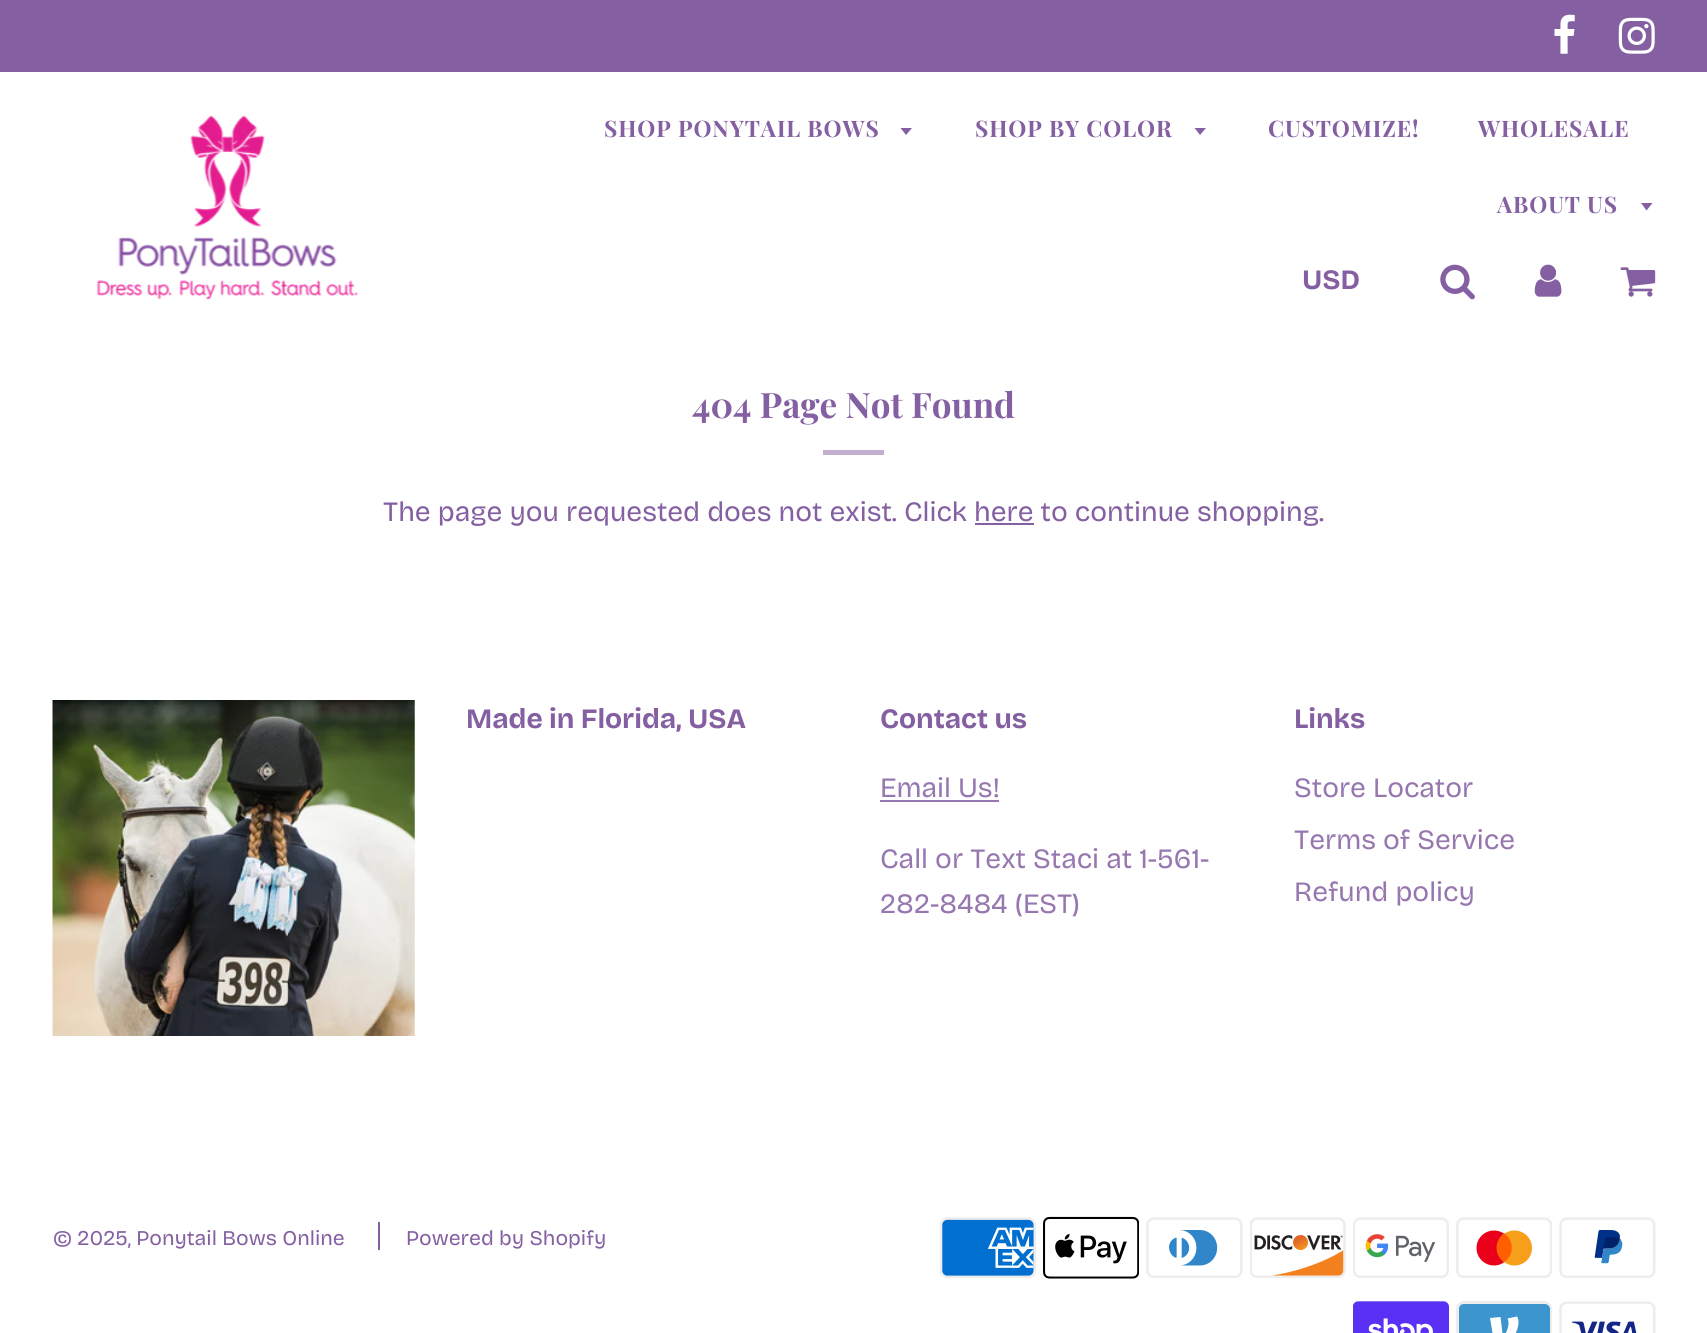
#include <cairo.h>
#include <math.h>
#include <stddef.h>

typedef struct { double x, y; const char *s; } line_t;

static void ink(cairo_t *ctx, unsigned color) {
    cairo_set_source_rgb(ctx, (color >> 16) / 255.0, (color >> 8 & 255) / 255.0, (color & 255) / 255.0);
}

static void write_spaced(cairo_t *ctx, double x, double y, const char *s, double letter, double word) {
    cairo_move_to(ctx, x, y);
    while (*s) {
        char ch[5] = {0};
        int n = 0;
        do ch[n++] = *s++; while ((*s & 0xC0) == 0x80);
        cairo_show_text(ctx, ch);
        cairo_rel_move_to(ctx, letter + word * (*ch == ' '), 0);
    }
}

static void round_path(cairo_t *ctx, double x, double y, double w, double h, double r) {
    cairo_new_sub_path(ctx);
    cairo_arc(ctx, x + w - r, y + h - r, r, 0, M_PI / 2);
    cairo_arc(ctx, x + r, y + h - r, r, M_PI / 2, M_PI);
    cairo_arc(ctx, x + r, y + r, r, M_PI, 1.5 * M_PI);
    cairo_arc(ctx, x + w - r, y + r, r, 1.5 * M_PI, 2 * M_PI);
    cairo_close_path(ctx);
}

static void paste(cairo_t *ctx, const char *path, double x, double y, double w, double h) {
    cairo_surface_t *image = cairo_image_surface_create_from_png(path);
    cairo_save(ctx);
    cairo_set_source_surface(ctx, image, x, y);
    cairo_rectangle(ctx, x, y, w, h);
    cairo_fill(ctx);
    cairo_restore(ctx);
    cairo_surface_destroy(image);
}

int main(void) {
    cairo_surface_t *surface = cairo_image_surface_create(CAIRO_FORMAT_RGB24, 1707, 1333);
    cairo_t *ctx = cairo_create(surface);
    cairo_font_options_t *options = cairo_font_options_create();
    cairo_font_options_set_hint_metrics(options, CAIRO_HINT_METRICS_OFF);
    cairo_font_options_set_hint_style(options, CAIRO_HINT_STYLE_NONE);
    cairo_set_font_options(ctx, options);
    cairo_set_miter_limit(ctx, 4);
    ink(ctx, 0xFFFFFF);
    cairo_paint(ctx);
    ink(ctx, 0x845FA1);
    cairo_rectangle(ctx, 0, 0, 1707, 72);
    cairo_fill(ctx);
    paste(ctx, "media/1.png", 1554, 14, 21, 40);
    paste(ctx, "media/2.png", 1618, 17, 37, 37);
    paste(ctx, "media/3.png", 96, 115, 262, 185);
    cairo_select_font_face(ctx, "Playfair Display", CAIRO_FONT_SLANT_NORMAL, CAIRO_FONT_WEIGHT_BOLD);
    cairo_set_font_size(ctx, 22.75);
    write_spaced(ctx, 604, 137, "SHOP PONYTAIL BOWS", 0.9, 0);
    cairo_new_path(ctx);
    cairo_move_to(ctx, 900.5, 128);
    cairo_line_to(ctx, 906, 135);
    cairo_line_to(ctx, 912, 128);
    cairo_close_path(ctx);
    cairo_fill(ctx);
    write_spaced(ctx, 975, 137, "SHOP BY COLOR", 0.9, 0);
    cairo_new_path(ctx);
    cairo_move_to(ctx, 1194.5, 128);
    cairo_line_to(ctx, 1200, 135);
    cairo_line_to(ctx, 1206, 128);
    cairo_close_path(ctx);
    cairo_fill(ctx);
    {
        static const line_t items[] = {
            {1268, 137, "CUSTOMIZE!"},
            {1478, 137, "WHOLESALE"},
            {1497, 213, "ABOUT US"},
        };
        for (size_t i = 0; i < sizeof items / sizeof *items; i++) {
            write_spaced(ctx, items[i].x, items[i].y, items[i].s, 0.9, 0);
        }
    }
    cairo_new_path(ctx);
    cairo_move_to(ctx, 1641, 203);
    cairo_line_to(ctx, 1646.5, 210.5);
    cairo_line_to(ctx, 1652.5, 203);
    cairo_close_path(ctx);
    cairo_fill(ctx);
    cairo_select_font_face(ctx, "Bricolage Grotesque", CAIRO_FONT_SLANT_NORMAL, CAIRO_FONT_WEIGHT_BOLD);
    cairo_set_font_size(ctx, 28);
    cairo_move_to(ctx, 1302, 289);
    cairo_show_text(ctx, "USD");
    paste(ctx, "media/4.png", 1440, 264, 35, 36);
    paste(ctx, "media/5.png", 1534, 264, 28, 33);
    paste(ctx, "media/6.png", 1620, 267, 36, 30);
    cairo_select_font_face(ctx, "Playfair Display", CAIRO_FONT_SLANT_NORMAL, CAIRO_FONT_WEIGHT_BOLD);
    cairo_set_font_size(ctx, 35);
    cairo_move_to(ctx, 692, 418);
    cairo_show_text(ctx, "404 Page Not Found");
    ink(ctx, 0xC2AFD0);
    cairo_rectangle(ctx, 823, 450, 61, 5);
    cairo_fill(ctx);
    cairo_select_font_face(ctx, "Bricolage Grotesque", CAIRO_FONT_SLANT_NORMAL, CAIRO_FONT_WEIGHT_NORMAL);
    cairo_set_font_size(ctx, 28);
    ink(ctx, 0x845FA1);
    cairo_move_to(ctx, 383, 521);
    cairo_show_text(ctx, "The page you requested does not exist. Click here to continue shopping.");
    cairo_rectangle(ctx, 975, 523, 59, 2);
    cairo_fill(ctx);
    paste(ctx, "media/7.png", 52, 700, 363, 336);
    cairo_select_font_face(ctx, "Bricolage Grotesque", CAIRO_FONT_SLANT_NORMAL, CAIRO_FONT_WEIGHT_BOLD);
    cairo_move_to(ctx, 466, 728);
    cairo_show_text(ctx, "Made in Florida, USA");
    cairo_move_to(ctx, 880, 728);
    cairo_show_text(ctx, "Contact us");
    cairo_select_font_face(ctx, "Bricolage Grotesque", CAIRO_FONT_SLANT_NORMAL, CAIRO_FONT_WEIGHT_NORMAL);
    ink(ctx, 0x9777AF);
    cairo_move_to(ctx, 880, 797);
    cairo_show_text(ctx, "Email Us!");
    cairo_rectangle(ctx, 880, 800, 119, 2);
    cairo_fill(ctx);
    cairo_move_to(ctx, 880, 868);
    cairo_show_text(ctx, "Call or Text Staci at 1-561-");
    cairo_move_to(ctx, 880, 913);
    cairo_show_text(ctx, "282-8484 (EST)");
    cairo_select_font_face(ctx, "Bricolage Grotesque", CAIRO_FONT_SLANT_NORMAL, CAIRO_FONT_WEIGHT_BOLD);
    ink(ctx, 0x845FA1);
    cairo_move_to(ctx, 1294, 728);
    cairo_show_text(ctx, "Links");
    cairo_select_font_face(ctx, "Bricolage Grotesque", CAIRO_FONT_SLANT_NORMAL, CAIRO_FONT_WEIGHT_NORMAL);
    ink(ctx, 0x9777AF);
    {
        static const line_t items[] = {
            {1294, 797, "Store Locator"},
            {1294, 849, "Terms of Service"},
            {1294, 901, "Refund policy"},
        };
        for (size_t i = 0; i < sizeof items / sizeof *items; i++) {
            cairo_move_to(ctx, items[i].x, items[i].y);
            cairo_show_text(ctx, items[i].s);
        }
    }
    cairo_select_font_face(ctx, "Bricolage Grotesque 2", CAIRO_FONT_SLANT_NORMAL, CAIRO_FONT_WEIGHT_NORMAL);
    cairo_set_font_size(ctx, 21);
    ink(ctx, 0x845FA1);
    cairo_move_to(ctx, 53, 1245);
    cairo_show_text(ctx, "© 2025, Ponytail Bows Online");
    cairo_rectangle(ctx, 378, 1222, 2, 28);
    cairo_fill(ctx);
    cairo_move_to(ctx, 406, 1245);
    cairo_show_text(ctx, "Powered by Shopify");
    paste(ctx, "media/8.png", 940, 1217, 96, 61);
    paste(ctx, "media/9.png", 1043, 1216, 96, 63);
    paste(ctx, "media/10.png", 1146, 1217, 97, 61);
    paste(ctx, "media/11.png", 1250, 1217, 96, 61);
    paste(ctx, "media/12.png", 1353, 1217, 96, 61);
    paste(ctx, "media/13.png", 1456, 1217, 96, 61);
    paste(ctx, "media/14.png", 1559, 1217, 97, 61);
    paste(ctx, "media/15.png", 1353, 1301, 96, 32);
    ink(ctx, 0xEDEDED);
    round_path(ctx, 1456, 1301, 96, 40, 8);
    cairo_fill(ctx);
    paste(ctx, "media/16.png", 1559, 1301, 97, 32);
    ink(ctx, 0x3D95CE);
    cairo_set_fill_rule(ctx, CAIRO_FILL_RULE_EVEN_ODD);
    cairo_new_path(ctx);
    cairo_move_to(ctx, 1545, 1304);
    cairo_curve_to(ctx, 1547, 1304, 1550, 1306, 1550, 1309);
    cairo_line_to(ctx, 1550, 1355);
    cairo_curve_to(ctx, 1550, 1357, 1547, 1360, 1545, 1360);
    cairo_line_to(ctx, 1464, 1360);
    cairo_curve_to(ctx, 1461, 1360, 1459, 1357, 1459, 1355);
    cairo_line_to(ctx, 1459, 1309);
    cairo_curve_to(ctx, 1459, 1306, 1461, 1304, 1464, 1304);
    cairo_line_to(ctx, 1545, 1304);
    cairo_fill(ctx);
    ink(ctx, 0xFFFFFF);
    cairo_set_fill_rule(ctx, CAIRO_FILL_RULE_WINDING);
    cairo_new_path(ctx);
    cairo_move_to(ctx, 1518.5, 1322.5);
    cairo_curve_to(ctx, 1518.5, 1330.5, 1512, 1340.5, 1507, 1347.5);
    cairo_line_to(ctx, 1495, 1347.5);
    cairo_line_to(ctx, 1490, 1318);
    cairo_line_to(ctx, 1500.5, 1317);
    cairo_line_to(ctx, 1503, 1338);
    cairo_curve_to(ctx, 1506.5, 1332.5, 1510.5, 1324.5, 1507.5, 1318.5);
    cairo_line_to(ctx, 1517, 1316.5);
    cairo_curve_to(ctx, 1518, 1318, 1518.5, 1320, 1518.5, 1322.5);
    cairo_close_path(ctx);
    cairo_fill(ctx);
    cairo_surface_write_to_png(surface, "image.png");
    cairo_font_options_destroy(options);
    cairo_destroy(ctx);
    cairo_surface_destroy(surface);
    return 0;
}
